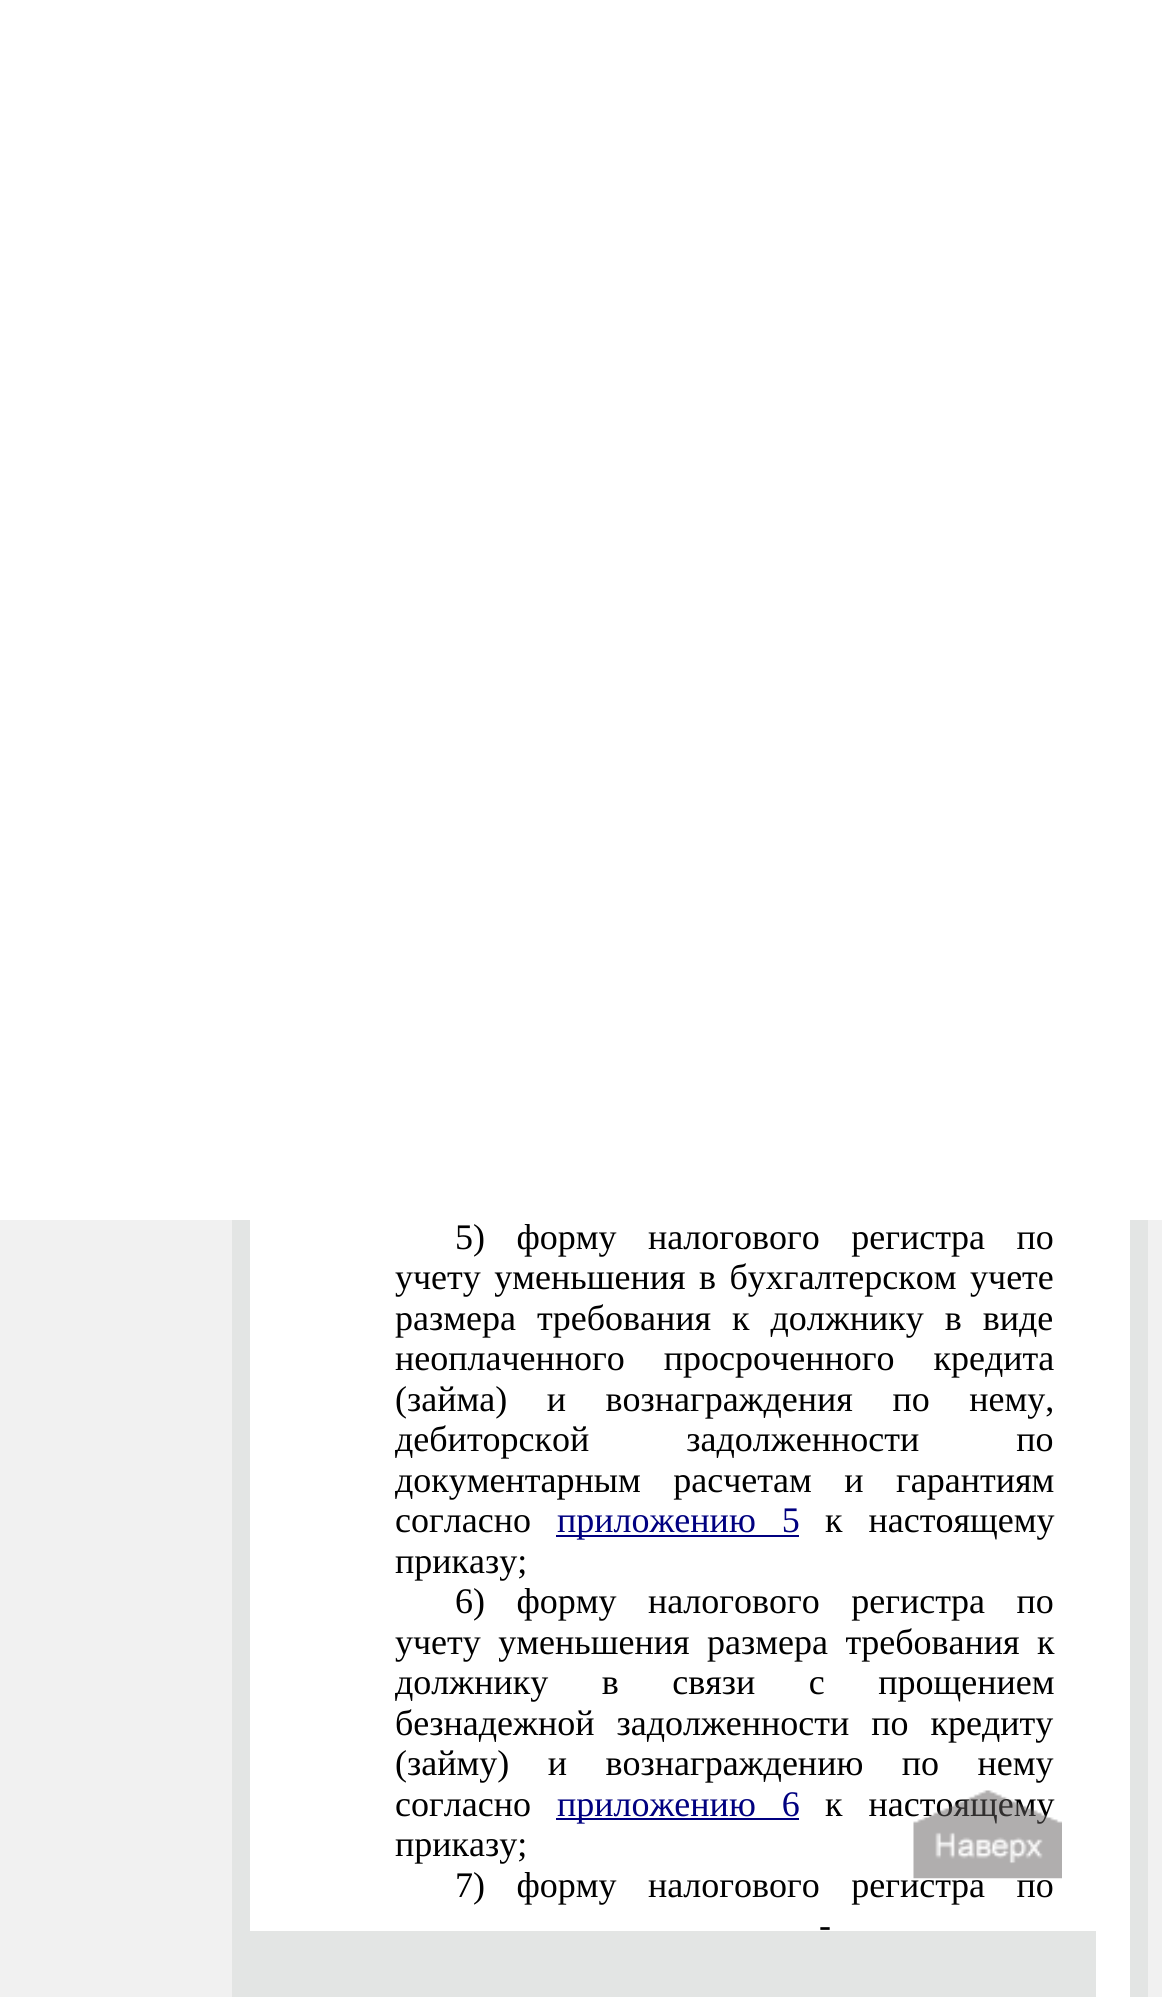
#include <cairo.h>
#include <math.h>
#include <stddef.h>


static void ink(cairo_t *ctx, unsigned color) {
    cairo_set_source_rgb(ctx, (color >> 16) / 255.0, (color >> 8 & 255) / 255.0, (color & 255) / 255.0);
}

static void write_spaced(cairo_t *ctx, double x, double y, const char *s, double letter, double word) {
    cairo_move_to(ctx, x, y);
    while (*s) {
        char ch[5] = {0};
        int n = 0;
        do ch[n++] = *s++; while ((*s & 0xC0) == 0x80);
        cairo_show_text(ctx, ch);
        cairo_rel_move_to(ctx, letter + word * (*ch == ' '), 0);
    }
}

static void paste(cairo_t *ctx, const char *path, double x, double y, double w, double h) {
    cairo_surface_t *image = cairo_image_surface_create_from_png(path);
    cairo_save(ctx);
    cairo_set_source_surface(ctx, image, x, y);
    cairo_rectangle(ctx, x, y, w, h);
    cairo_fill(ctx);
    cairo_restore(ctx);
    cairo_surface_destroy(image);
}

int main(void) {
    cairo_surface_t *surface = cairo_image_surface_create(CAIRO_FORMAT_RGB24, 1162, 1997);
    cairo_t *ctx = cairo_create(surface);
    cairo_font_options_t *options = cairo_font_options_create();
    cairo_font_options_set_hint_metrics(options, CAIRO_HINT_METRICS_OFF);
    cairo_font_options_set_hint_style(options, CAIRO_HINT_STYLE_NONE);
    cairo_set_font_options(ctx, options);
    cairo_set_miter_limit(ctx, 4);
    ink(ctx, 0xF1F1F1);
    cairo_paint(ctx);
    ink(ctx, 0xFFFFFF);
    cairo_rectangle(ctx, 250, 1220, 880, 777);
    cairo_fill(ctx);
    cairo_rectangle(ctx, 241, -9, 898, 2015);
    ink(ctx, 0xE3E5E4);
    cairo_set_line_width(ctx, 18);
    cairo_stroke(ctx);
    ink(ctx, 0xFFFFFF);
    cairo_rectangle(ctx, 0, 0, 1162, 1220);
    cairo_fill(ctx);
    cairo_select_font_face(ctx, "Liberation Serif", CAIRO_FONT_SLANT_NORMAL, CAIRO_FONT_WEIGHT_NORMAL);
    cairo_set_font_size(ctx, 36);
    ink(ctx, 0x000000);
    write_spaced(ctx, 455, 1249, "5) форму налогового регистра по", 0, 22.5);
    write_spaced(ctx, 395, 1289, "учету уменьшения в бухгалтерском учете", 0, 4.5);
    write_spaced(ctx, 395, 1330, "размера требования к должнику в виде", 0, 12);
    write_spaced(ctx, 395, 1370, "неоплаченного просроченного кредита", 0, 30);
    write_spaced(ctx, 395, 1411, "(займа) и вознаграждения по нему,", 0, 30.5);
    write_spaced(ctx, 395, 1451, "дебиторской задолженности по", 0, 88);
    write_spaced(ctx, 395, 1492, "документарным расчетам и гарантиям", 0, 23.5);
    cairo_move_to(ctx, 395, 1532);
    cairo_show_text(ctx, "согласно");
    ink(ctx, 0x000080);
    cairo_rectangle(ctx, 556, 1535, 243, 2);
    cairo_fill(ctx);
    write_spaced(ctx, 557, 1532, "приложению 5", 0, 17);
    ink(ctx, 0x000000);
    write_spaced(ctx, 825, 1532, "к настоящему", 0, 17);
    cairo_move_to(ctx, 395, 1573);
    cairo_show_text(ctx, "приказу;");
    write_spaced(ctx, 455, 1613, "6) форму налогового регистра по", 0, 22.5);
    write_spaced(ctx, 395, 1654, "учету уменьшения размера требования к", 0, 8.5);
    write_spaced(ctx, 395, 1694, "должнику в связи с прощением", 0, 44.5);
    write_spaced(ctx, 395, 1735, "безнадежной задолженности по кредиту", 0, 13);
    write_spaced(ctx, 395, 1775, "(займу) и вознаграждению по нему", 0, 29.5);
    cairo_move_to(ctx, 395, 1816);
    cairo_show_text(ctx, "согласно");
    ink(ctx, 0x000080);
    cairo_rectangle(ctx, 556, 1818, 243, 2);
    cairo_fill(ctx);
    write_spaced(ctx, 557, 1816, "приложению 6", 0, 17);
    ink(ctx, 0x000000);
    write_spaced(ctx, 825, 1816, "к настоящему", 0, 17);
    cairo_move_to(ctx, 395, 1856);
    cairo_show_text(ctx, "приказу;");
    write_spaced(ctx, 455, 1897, "7) форму налогового регистра по", 0, 22.5);
    write_spaced(ctx, 819, 1937, "-", 0, 38);
    paste(ctx, "media/1.png", 913, 1790, 149, 89);
    ink(ctx, 0xE3E5E4);
    cairo_rectangle(ctx, 250, 1931, 846, 66);
    cairo_fill(ctx);
    cairo_surface_write_to_png(surface, "image.png");
    cairo_font_options_destroy(options);
    cairo_destroy(ctx);
    cairo_surface_destroy(surface);
    return 0;
}
